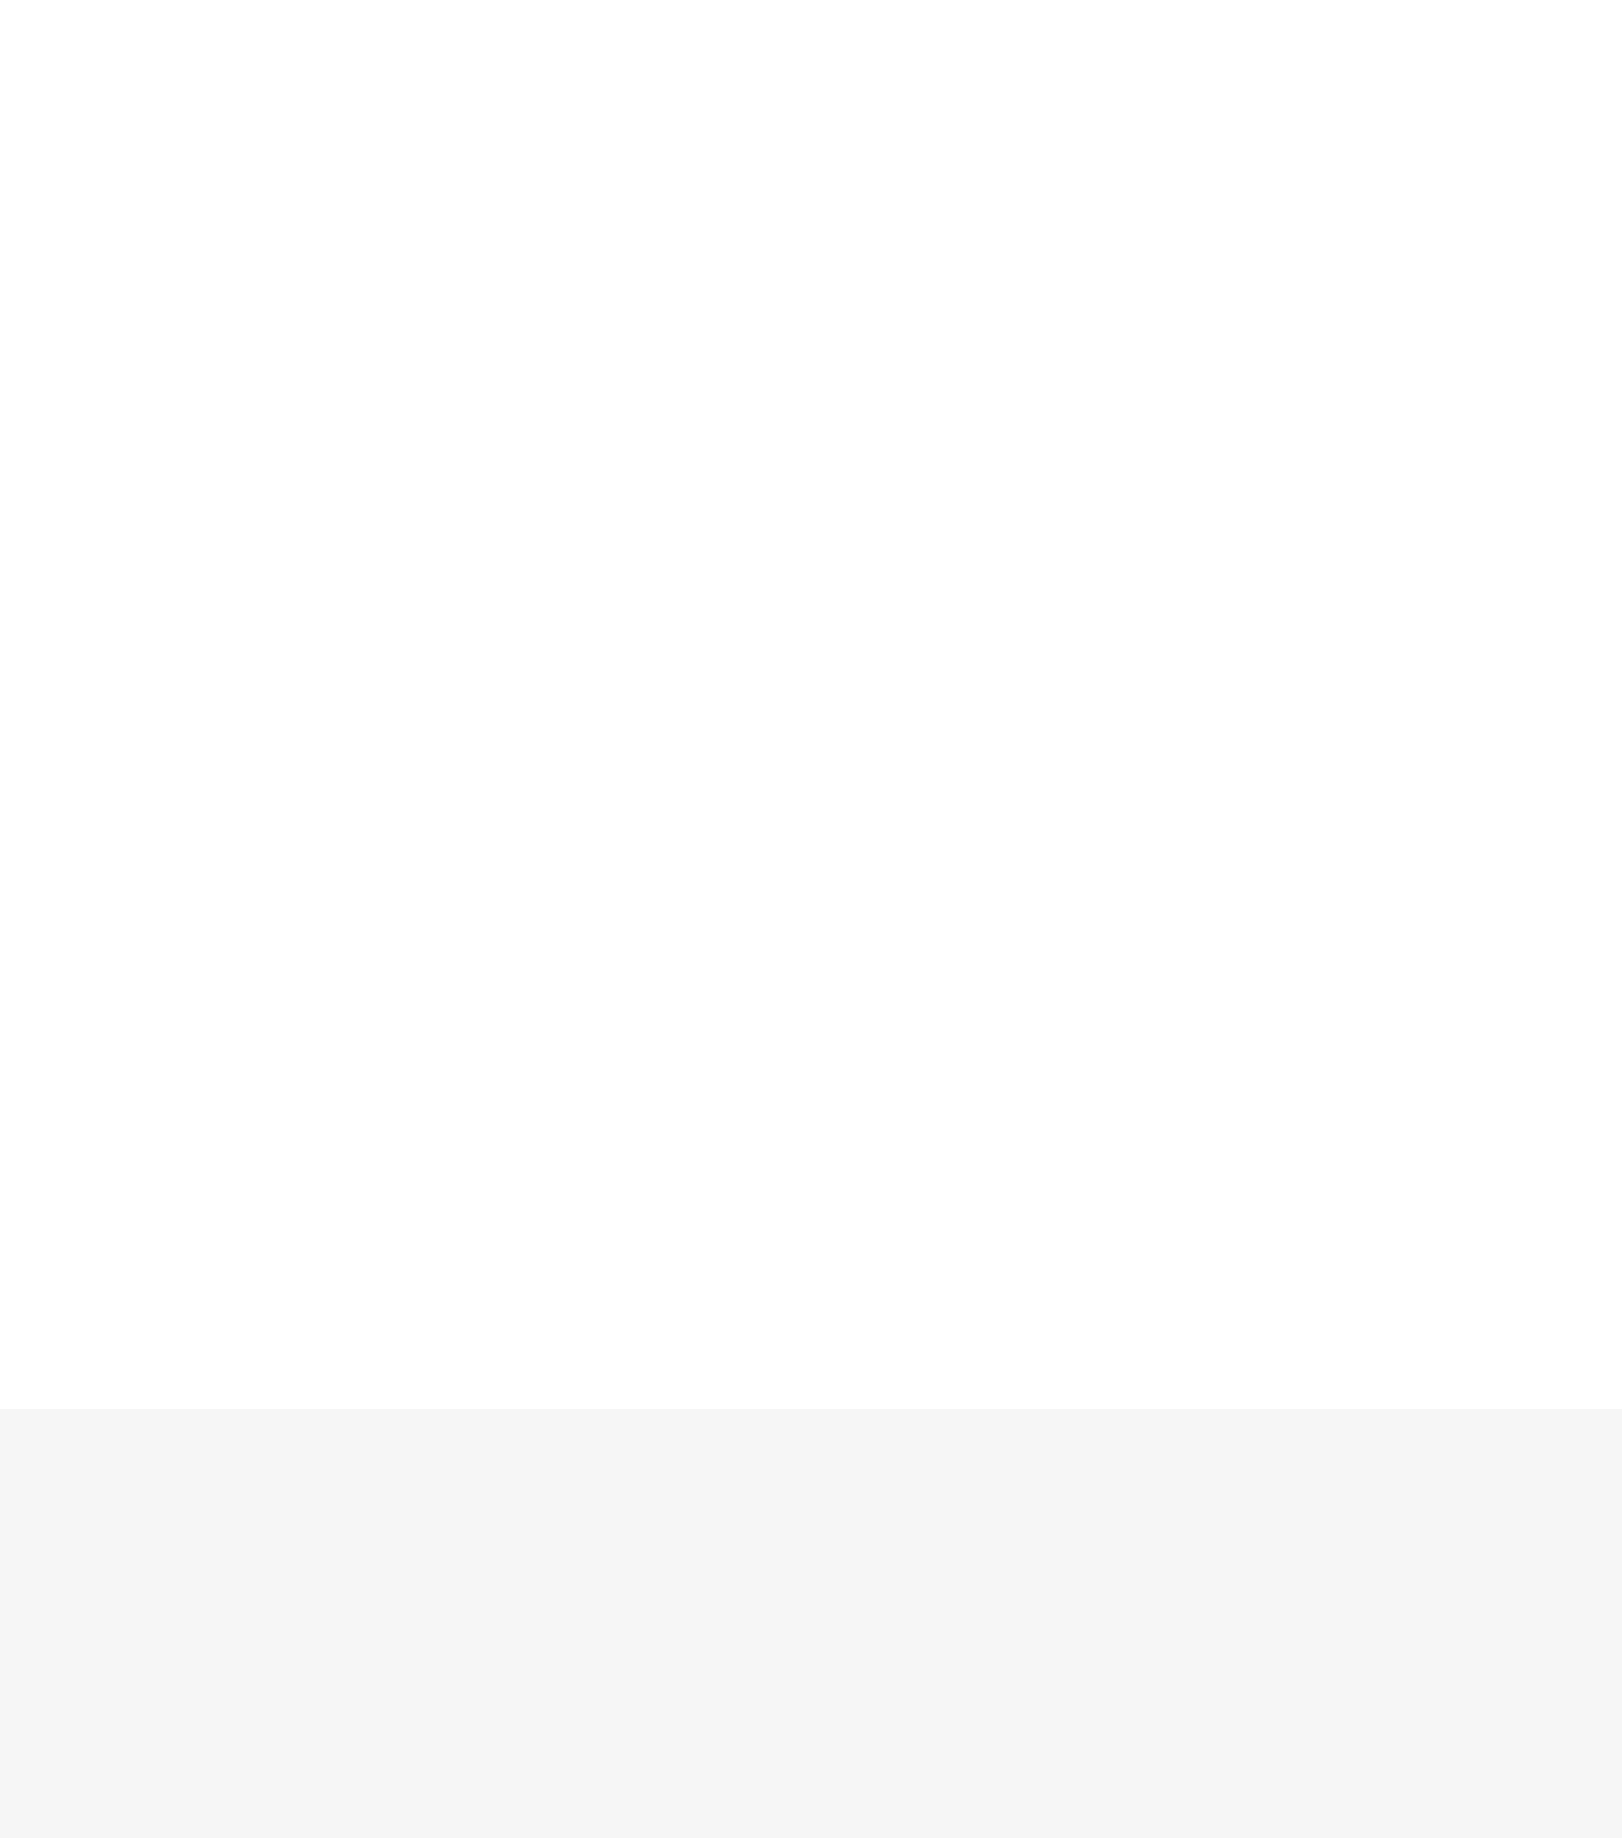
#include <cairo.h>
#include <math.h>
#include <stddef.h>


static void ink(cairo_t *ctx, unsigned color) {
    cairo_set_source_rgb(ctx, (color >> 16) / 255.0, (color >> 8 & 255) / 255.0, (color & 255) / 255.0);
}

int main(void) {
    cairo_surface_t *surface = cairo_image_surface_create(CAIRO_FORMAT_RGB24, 1622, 1838);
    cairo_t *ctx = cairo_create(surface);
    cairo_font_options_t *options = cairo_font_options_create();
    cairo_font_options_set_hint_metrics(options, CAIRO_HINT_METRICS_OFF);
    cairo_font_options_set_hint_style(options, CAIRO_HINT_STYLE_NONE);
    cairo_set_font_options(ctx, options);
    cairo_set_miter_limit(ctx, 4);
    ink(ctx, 0xF6F6F6);
    cairo_paint(ctx);
    ink(ctx, 0xFFFFFF);
    cairo_rectangle(ctx, 0, 0, 1622, 1409);
    cairo_fill(ctx);
    cairo_surface_write_to_png(surface, "image.png");
    cairo_font_options_destroy(options);
    cairo_destroy(ctx);
    cairo_surface_destroy(surface);
    return 0;
}
